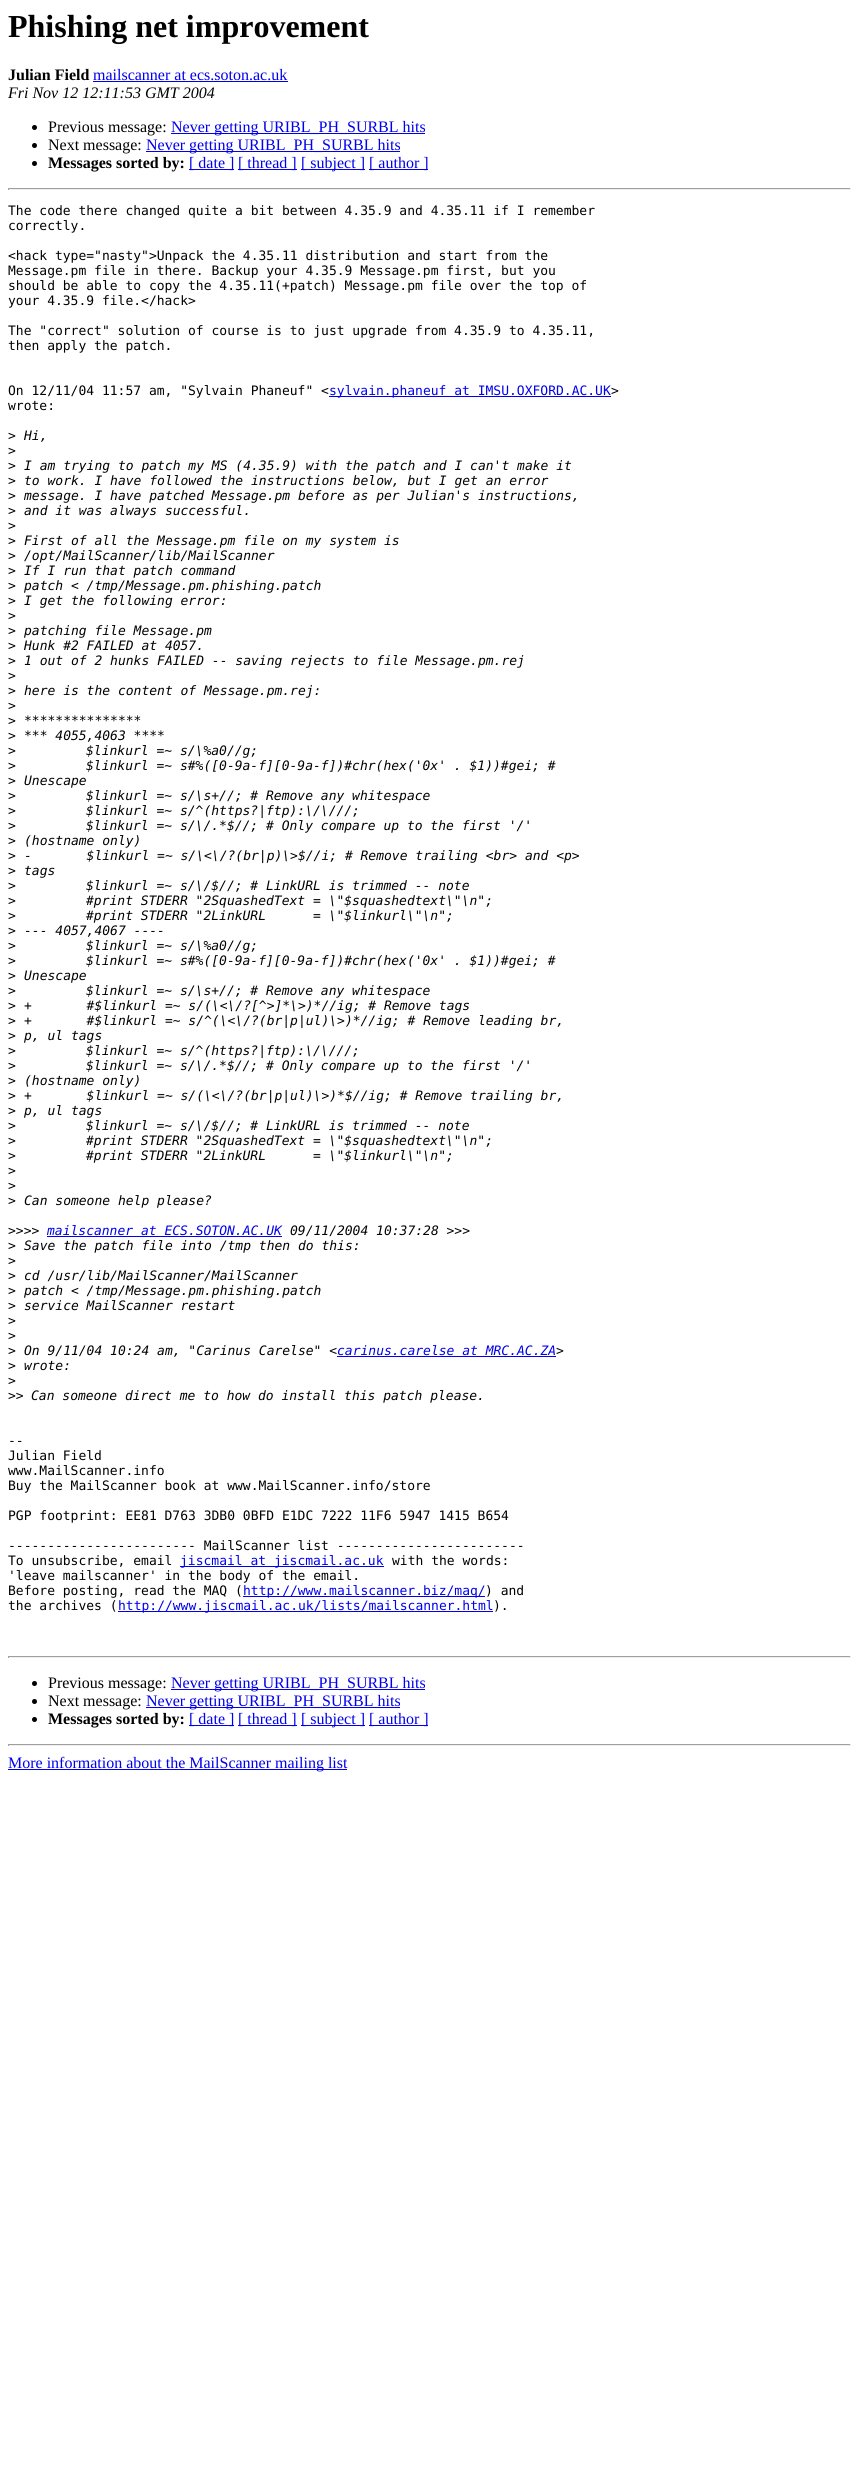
#include <cairo.h>
#include <math.h>
#include <stddef.h>

typedef struct { double x, y; const char *s; } line_t;
typedef struct { double x, y, w, h; unsigned color; } box_t;

static void ink(cairo_t *ctx, unsigned color) {
    cairo_set_source_rgb(ctx, (color >> 16) / 255.0, (color >> 8 & 255) / 255.0, (color & 255) / 255.0);
}

int main(void) {
    cairo_surface_t *surface = cairo_image_surface_create(CAIRO_FORMAT_RGB24, 859, 2484);
    cairo_t *ctx = cairo_create(surface);
    cairo_font_options_t *options = cairo_font_options_create();
    cairo_font_options_set_hint_metrics(options, CAIRO_HINT_METRICS_OFF);
    cairo_font_options_set_hint_style(options, CAIRO_HINT_STYLE_NONE);
    cairo_set_font_options(ctx, options);
    cairo_set_miter_limit(ctx, 4);
    ink(ctx, 0xFFFFFF);
    cairo_paint(ctx);
    cairo_select_font_face(ctx, "Liberation Serif", CAIRO_FONT_SLANT_NORMAL, CAIRO_FONT_WEIGHT_BOLD);
    cairo_set_font_size(ctx, 32);
    ink(ctx, 0x000000);
    cairo_move_to(ctx, 8, 37);
    cairo_show_text(ctx, "Phishing net improvement");
    cairo_set_font_size(ctx, 16);
    cairo_move_to(ctx, 8, 80);
    cairo_show_text(ctx, "Julian Field");
    cairo_select_font_face(ctx, "Liberation Serif", CAIRO_FONT_SLANT_NORMAL, CAIRO_FONT_WEIGHT_NORMAL);
    ink(ctx, 0x0000EE);
    cairo_move_to(ctx, 93, 80);
    cairo_show_text(ctx, "mailscanner at ecs.soton.ac.uk");
    cairo_rectangle(ctx, 93, 81, 195, 1);
    cairo_fill(ctx);
    cairo_select_font_face(ctx, "Liberation Serif", CAIRO_FONT_SLANT_ITALIC, CAIRO_FONT_WEIGHT_NORMAL);
    ink(ctx, 0x000000);
    cairo_move_to(ctx, 8, 98);
    cairo_show_text(ctx, "Fri Nov 12 12:11:53 GMT 2004");
    cairo_new_path(ctx);
    cairo_arc(ctx, 34.5, 127.5, 2.5, 0, 2 * M_PI);
    cairo_fill(ctx);
    cairo_select_font_face(ctx, "Liberation Serif", CAIRO_FONT_SLANT_NORMAL, CAIRO_FONT_WEIGHT_NORMAL);
    cairo_move_to(ctx, 48, 132);
    cairo_show_text(ctx, "Previous message:");
    ink(ctx, 0x0000EE);
    cairo_rectangle(ctx, 171, 133, 254, 1);
    cairo_fill(ctx);
    cairo_move_to(ctx, 171, 132);
    cairo_show_text(ctx, "Never getting URIBL_PH_SURBL hits");
    ink(ctx, 0x000000);
    cairo_new_path(ctx);
    cairo_arc(ctx, 34.5, 145.5, 2.5, 0, 2 * M_PI);
    cairo_fill(ctx);
    cairo_move_to(ctx, 48, 150);
    cairo_show_text(ctx, "Next message:");
    ink(ctx, 0x0000EE);
    cairo_rectangle(ctx, 146, 151, 254, 1);
    cairo_fill(ctx);
    cairo_move_to(ctx, 146, 150);
    cairo_show_text(ctx, "Never getting URIBL_PH_SURBL hits");
    ink(ctx, 0x000000);
    cairo_new_path(ctx);
    cairo_arc(ctx, 34.5, 163.5, 2.5, 0, 2 * M_PI);
    cairo_fill(ctx);
    cairo_select_font_face(ctx, "Liberation Serif", CAIRO_FONT_SLANT_NORMAL, CAIRO_FONT_WEIGHT_BOLD);
    cairo_move_to(ctx, 48, 168);
    cairo_show_text(ctx, "Messages sorted by:");
    ink(ctx, 0x0000EE);
    cairo_rectangle(ctx, 189, 169, 45, 1);
    cairo_fill(ctx);
    cairo_select_font_face(ctx, "Liberation Serif", CAIRO_FONT_SLANT_NORMAL, CAIRO_FONT_WEIGHT_NORMAL);
    cairo_move_to(ctx, 189, 168);
    cairo_show_text(ctx, "[ date ]");
    cairo_rectangle(ctx, 238, 169, 59, 1);
    cairo_fill(ctx);
    cairo_move_to(ctx, 238, 168);
    cairo_show_text(ctx, "[ thread ]");
    cairo_rectangle(ctx, 301, 169, 64, 1);
    cairo_fill(ctx);
    cairo_move_to(ctx, 301, 168);
    cairo_show_text(ctx, "[ subject ]");
    cairo_rectangle(ctx, 369, 169, 59, 1);
    cairo_fill(ctx);
    cairo_move_to(ctx, 369, 168);
    cairo_show_text(ctx, "[ author ]");
    {
        static const box_t items[] = {
            {8, 188, 843, 1, 0x9F9F9F},
            {850, 188, 1, 2, 0xEEEEEE},
            {8, 189, 843, 1, 0xEEEEEE},
            {8, 188, 1, 2, 0x9F9F9F},
        };
        for (size_t i = 0; i < sizeof items / sizeof *items; i++) {
            ink(ctx, items[i].color);
            cairo_rectangle(ctx, items[i].x, items[i].y, items[i].w, items[i].h);
            cairo_fill(ctx);
        }
    }
    cairo_select_font_face(ctx, "DejaVu Sans Mono", CAIRO_FONT_SLANT_NORMAL, CAIRO_FONT_WEIGHT_NORMAL);
    cairo_set_font_size(ctx, 13);
    ink(ctx, 0x000000);
    {
        static const line_t items[] = {
            {8, 215, "The code there changed quite a bit between 4.35.9 and 4.35.11 if I remember"},
            {8, 230, "correctly."},
            {8, 260, "<hack type=\"nasty\">Unpack the 4.35.11 distribution and start from the"},
            {8, 275, "Message.pm file in there. Backup your 4.35.9 Message.pm first, but you"},
            {8, 290, "should be able to copy the 4.35.11(+patch) Message.pm file over the top of"},
            {8, 305, "your 4.35.9 file.</hack>"},
            {8, 335, "The \"correct\" solution of course is to just upgrade from 4.35.9 to 4.35.11,"},
            {8, 350, "then apply the patch."},
            {8, 395, "On 12/11/04 11:57 am, \"Sylvain Phaneuf\" <"},
        };
        for (size_t i = 0; i < sizeof items / sizeof *items; i++) {
            cairo_move_to(ctx, items[i].x, items[i].y);
            cairo_show_text(ctx, items[i].s);
        }
    }
    ink(ctx, 0x0000EE);
    cairo_rectangle(ctx, 329, 396, 282, 1);
    cairo_fill(ctx);
    cairo_move_to(ctx, 329, 395);
    cairo_show_text(ctx, "sylvain.phaneuf at IMSU.OXFORD.AC.UK");
    ink(ctx, 0x000000);
    {
        static const line_t items[] = {
            {611, 395, ">"},
            {8, 410, "wrote:"},
            {8, 440, ">"},
        };
        for (size_t i = 0; i < sizeof items / sizeof *items; i++) {
            cairo_move_to(ctx, items[i].x, items[i].y);
            cairo_show_text(ctx, items[i].s);
        }
    }
    cairo_select_font_face(ctx, "DejaVu Sans Mono", CAIRO_FONT_SLANT_ITALIC, CAIRO_FONT_WEIGHT_NORMAL);
    cairo_move_to(ctx, 24, 440);
    cairo_show_text(ctx, "Hi,");
    cairo_select_font_face(ctx, "DejaVu Sans Mono", CAIRO_FONT_SLANT_NORMAL, CAIRO_FONT_WEIGHT_NORMAL);
    cairo_move_to(ctx, 8, 455);
    cairo_show_text(ctx, ">");
    cairo_move_to(ctx, 8, 470);
    cairo_show_text(ctx, ">");
    cairo_select_font_face(ctx, "DejaVu Sans Mono", CAIRO_FONT_SLANT_ITALIC, CAIRO_FONT_WEIGHT_NORMAL);
    cairo_move_to(ctx, 24, 470);
    cairo_show_text(ctx, "I am trying to patch my MS (4.35.9) with the patch and I can't make it");
    cairo_select_font_face(ctx, "DejaVu Sans Mono", CAIRO_FONT_SLANT_NORMAL, CAIRO_FONT_WEIGHT_NORMAL);
    cairo_move_to(ctx, 8, 485);
    cairo_show_text(ctx, ">");
    cairo_select_font_face(ctx, "DejaVu Sans Mono", CAIRO_FONT_SLANT_ITALIC, CAIRO_FONT_WEIGHT_NORMAL);
    cairo_move_to(ctx, 24, 485);
    cairo_show_text(ctx, "to work. I have followed the instructions below, but I get an error");
    cairo_select_font_face(ctx, "DejaVu Sans Mono", CAIRO_FONT_SLANT_NORMAL, CAIRO_FONT_WEIGHT_NORMAL);
    cairo_move_to(ctx, 8, 500);
    cairo_show_text(ctx, ">");
    cairo_select_font_face(ctx, "DejaVu Sans Mono", CAIRO_FONT_SLANT_ITALIC, CAIRO_FONT_WEIGHT_NORMAL);
    cairo_move_to(ctx, 24, 500);
    cairo_show_text(ctx, "message. I have patched Message.pm before as per Julian's instructions,");
    cairo_select_font_face(ctx, "DejaVu Sans Mono", CAIRO_FONT_SLANT_NORMAL, CAIRO_FONT_WEIGHT_NORMAL);
    cairo_move_to(ctx, 8, 515);
    cairo_show_text(ctx, ">");
    cairo_select_font_face(ctx, "DejaVu Sans Mono", CAIRO_FONT_SLANT_ITALIC, CAIRO_FONT_WEIGHT_NORMAL);
    cairo_move_to(ctx, 24, 515);
    cairo_show_text(ctx, "and it was always successful.");
    cairo_select_font_face(ctx, "DejaVu Sans Mono", CAIRO_FONT_SLANT_NORMAL, CAIRO_FONT_WEIGHT_NORMAL);
    cairo_move_to(ctx, 8, 530);
    cairo_show_text(ctx, ">");
    cairo_move_to(ctx, 8, 545);
    cairo_show_text(ctx, ">");
    cairo_select_font_face(ctx, "DejaVu Sans Mono", CAIRO_FONT_SLANT_ITALIC, CAIRO_FONT_WEIGHT_NORMAL);
    cairo_move_to(ctx, 24, 545);
    cairo_show_text(ctx, "First of all the Message.pm file on my system is");
    cairo_select_font_face(ctx, "DejaVu Sans Mono", CAIRO_FONT_SLANT_NORMAL, CAIRO_FONT_WEIGHT_NORMAL);
    cairo_move_to(ctx, 8, 560);
    cairo_show_text(ctx, ">");
    cairo_select_font_face(ctx, "DejaVu Sans Mono", CAIRO_FONT_SLANT_ITALIC, CAIRO_FONT_WEIGHT_NORMAL);
    cairo_move_to(ctx, 24, 560);
    cairo_show_text(ctx, "/opt/MailScanner/lib/MailScanner");
    cairo_select_font_face(ctx, "DejaVu Sans Mono", CAIRO_FONT_SLANT_NORMAL, CAIRO_FONT_WEIGHT_NORMAL);
    cairo_move_to(ctx, 8, 575);
    cairo_show_text(ctx, ">");
    cairo_select_font_face(ctx, "DejaVu Sans Mono", CAIRO_FONT_SLANT_ITALIC, CAIRO_FONT_WEIGHT_NORMAL);
    cairo_move_to(ctx, 24, 575);
    cairo_show_text(ctx, "If I run that patch command");
    cairo_select_font_face(ctx, "DejaVu Sans Mono", CAIRO_FONT_SLANT_NORMAL, CAIRO_FONT_WEIGHT_NORMAL);
    cairo_move_to(ctx, 8, 590);
    cairo_show_text(ctx, ">");
    cairo_select_font_face(ctx, "DejaVu Sans Mono", CAIRO_FONT_SLANT_ITALIC, CAIRO_FONT_WEIGHT_NORMAL);
    cairo_move_to(ctx, 24, 590);
    cairo_show_text(ctx, "patch < /tmp/Message.pm.phishing.patch");
    cairo_select_font_face(ctx, "DejaVu Sans Mono", CAIRO_FONT_SLANT_NORMAL, CAIRO_FONT_WEIGHT_NORMAL);
    cairo_move_to(ctx, 8, 605);
    cairo_show_text(ctx, ">");
    cairo_select_font_face(ctx, "DejaVu Sans Mono", CAIRO_FONT_SLANT_ITALIC, CAIRO_FONT_WEIGHT_NORMAL);
    cairo_move_to(ctx, 24, 605);
    cairo_show_text(ctx, "I get the following error:");
    cairo_select_font_face(ctx, "DejaVu Sans Mono", CAIRO_FONT_SLANT_NORMAL, CAIRO_FONT_WEIGHT_NORMAL);
    cairo_move_to(ctx, 8, 620);
    cairo_show_text(ctx, ">");
    cairo_move_to(ctx, 8, 635);
    cairo_show_text(ctx, ">");
    cairo_select_font_face(ctx, "DejaVu Sans Mono", CAIRO_FONT_SLANT_ITALIC, CAIRO_FONT_WEIGHT_NORMAL);
    cairo_move_to(ctx, 24, 635);
    cairo_show_text(ctx, "patching file Message.pm");
    cairo_select_font_face(ctx, "DejaVu Sans Mono", CAIRO_FONT_SLANT_NORMAL, CAIRO_FONT_WEIGHT_NORMAL);
    cairo_move_to(ctx, 8, 650);
    cairo_show_text(ctx, ">");
    cairo_select_font_face(ctx, "DejaVu Sans Mono", CAIRO_FONT_SLANT_ITALIC, CAIRO_FONT_WEIGHT_NORMAL);
    cairo_move_to(ctx, 24, 650);
    cairo_show_text(ctx, "Hunk #2 FAILED at 4057.");
    cairo_select_font_face(ctx, "DejaVu Sans Mono", CAIRO_FONT_SLANT_NORMAL, CAIRO_FONT_WEIGHT_NORMAL);
    cairo_move_to(ctx, 8, 665);
    cairo_show_text(ctx, ">");
    cairo_select_font_face(ctx, "DejaVu Sans Mono", CAIRO_FONT_SLANT_ITALIC, CAIRO_FONT_WEIGHT_NORMAL);
    cairo_move_to(ctx, 24, 665);
    cairo_show_text(ctx, "1 out of 2 hunks FAILED -- saving rejects to file Message.pm.rej");
    cairo_select_font_face(ctx, "DejaVu Sans Mono", CAIRO_FONT_SLANT_NORMAL, CAIRO_FONT_WEIGHT_NORMAL);
    cairo_move_to(ctx, 8, 680);
    cairo_show_text(ctx, ">");
    cairo_move_to(ctx, 8, 695);
    cairo_show_text(ctx, ">");
    cairo_select_font_face(ctx, "DejaVu Sans Mono", CAIRO_FONT_SLANT_ITALIC, CAIRO_FONT_WEIGHT_NORMAL);
    cairo_move_to(ctx, 24, 695);
    cairo_show_text(ctx, "here is the content of Message.pm.rej:");
    cairo_select_font_face(ctx, "DejaVu Sans Mono", CAIRO_FONT_SLANT_NORMAL, CAIRO_FONT_WEIGHT_NORMAL);
    cairo_move_to(ctx, 8, 710);
    cairo_show_text(ctx, ">");
    cairo_move_to(ctx, 8, 725);
    cairo_show_text(ctx, ">");
    cairo_select_font_face(ctx, "DejaVu Sans Mono", CAIRO_FONT_SLANT_ITALIC, CAIRO_FONT_WEIGHT_NORMAL);
    cairo_move_to(ctx, 24, 725);
    cairo_show_text(ctx, "***************");
    cairo_select_font_face(ctx, "DejaVu Sans Mono", CAIRO_FONT_SLANT_NORMAL, CAIRO_FONT_WEIGHT_NORMAL);
    cairo_move_to(ctx, 8, 740);
    cairo_show_text(ctx, ">");
    cairo_select_font_face(ctx, "DejaVu Sans Mono", CAIRO_FONT_SLANT_ITALIC, CAIRO_FONT_WEIGHT_NORMAL);
    cairo_move_to(ctx, 24, 740);
    cairo_show_text(ctx, "*** 4055,4063 ****");
    cairo_select_font_face(ctx, "DejaVu Sans Mono", CAIRO_FONT_SLANT_NORMAL, CAIRO_FONT_WEIGHT_NORMAL);
    cairo_move_to(ctx, 8, 755);
    cairo_show_text(ctx, ">");
    cairo_select_font_face(ctx, "DejaVu Sans Mono", CAIRO_FONT_SLANT_ITALIC, CAIRO_FONT_WEIGHT_NORMAL);
    cairo_move_to(ctx, 86, 755);
    cairo_show_text(ctx, "$linkurl =~ s/\\%a0//g;");
    cairo_select_font_face(ctx, "DejaVu Sans Mono", CAIRO_FONT_SLANT_NORMAL, CAIRO_FONT_WEIGHT_NORMAL);
    cairo_move_to(ctx, 8, 770);
    cairo_show_text(ctx, ">");
    cairo_select_font_face(ctx, "DejaVu Sans Mono", CAIRO_FONT_SLANT_ITALIC, CAIRO_FONT_WEIGHT_NORMAL);
    cairo_move_to(ctx, 86, 770);
    cairo_show_text(ctx, "$linkurl =~ s#%([0-9a-f][0-9a-f])#chr(hex('0x' . $1))#gei; #");
    cairo_select_font_face(ctx, "DejaVu Sans Mono", CAIRO_FONT_SLANT_NORMAL, CAIRO_FONT_WEIGHT_NORMAL);
    cairo_move_to(ctx, 8, 785);
    cairo_show_text(ctx, ">");
    cairo_select_font_face(ctx, "DejaVu Sans Mono", CAIRO_FONT_SLANT_ITALIC, CAIRO_FONT_WEIGHT_NORMAL);
    cairo_move_to(ctx, 24, 785);
    cairo_show_text(ctx, "Unescape");
    cairo_select_font_face(ctx, "DejaVu Sans Mono", CAIRO_FONT_SLANT_NORMAL, CAIRO_FONT_WEIGHT_NORMAL);
    cairo_move_to(ctx, 8, 800);
    cairo_show_text(ctx, ">");
    cairo_select_font_face(ctx, "DejaVu Sans Mono", CAIRO_FONT_SLANT_ITALIC, CAIRO_FONT_WEIGHT_NORMAL);
    cairo_move_to(ctx, 86, 800);
    cairo_show_text(ctx, "$linkurl =~ s/\\s+//; # Remove any whitespace");
    cairo_select_font_face(ctx, "DejaVu Sans Mono", CAIRO_FONT_SLANT_NORMAL, CAIRO_FONT_WEIGHT_NORMAL);
    cairo_move_to(ctx, 8, 815);
    cairo_show_text(ctx, ">");
    cairo_select_font_face(ctx, "DejaVu Sans Mono", CAIRO_FONT_SLANT_ITALIC, CAIRO_FONT_WEIGHT_NORMAL);
    cairo_move_to(ctx, 86, 815);
    cairo_show_text(ctx, "$linkurl =~ s/^(https?|ftp):\\/\\///;");
    cairo_select_font_face(ctx, "DejaVu Sans Mono", CAIRO_FONT_SLANT_NORMAL, CAIRO_FONT_WEIGHT_NORMAL);
    cairo_move_to(ctx, 8, 830);
    cairo_show_text(ctx, ">");
    cairo_select_font_face(ctx, "DejaVu Sans Mono", CAIRO_FONT_SLANT_ITALIC, CAIRO_FONT_WEIGHT_NORMAL);
    cairo_move_to(ctx, 86, 830);
    cairo_show_text(ctx, "$linkurl =~ s/\\/.*$//; # Only compare up to the first '/'");
    cairo_select_font_face(ctx, "DejaVu Sans Mono", CAIRO_FONT_SLANT_NORMAL, CAIRO_FONT_WEIGHT_NORMAL);
    cairo_move_to(ctx, 8, 845);
    cairo_show_text(ctx, ">");
    cairo_select_font_face(ctx, "DejaVu Sans Mono", CAIRO_FONT_SLANT_ITALIC, CAIRO_FONT_WEIGHT_NORMAL);
    cairo_move_to(ctx, 24, 845);
    cairo_show_text(ctx, "(hostname only)");
    cairo_select_font_face(ctx, "DejaVu Sans Mono", CAIRO_FONT_SLANT_NORMAL, CAIRO_FONT_WEIGHT_NORMAL);
    cairo_move_to(ctx, 8, 860);
    cairo_show_text(ctx, ">");
    cairo_select_font_face(ctx, "DejaVu Sans Mono", CAIRO_FONT_SLANT_ITALIC, CAIRO_FONT_WEIGHT_NORMAL);
    cairo_move_to(ctx, 24, 860);
    cairo_show_text(ctx, "-       $linkurl =~ s/\\<\\/?(br|p)\\>$//i; # Remove trailing <br> and <p>");
    cairo_select_font_face(ctx, "DejaVu Sans Mono", CAIRO_FONT_SLANT_NORMAL, CAIRO_FONT_WEIGHT_NORMAL);
    cairo_move_to(ctx, 8, 875);
    cairo_show_text(ctx, ">");
    cairo_select_font_face(ctx, "DejaVu Sans Mono", CAIRO_FONT_SLANT_ITALIC, CAIRO_FONT_WEIGHT_NORMAL);
    cairo_move_to(ctx, 24, 875);
    cairo_show_text(ctx, "tags");
    cairo_select_font_face(ctx, "DejaVu Sans Mono", CAIRO_FONT_SLANT_NORMAL, CAIRO_FONT_WEIGHT_NORMAL);
    cairo_move_to(ctx, 8, 890);
    cairo_show_text(ctx, ">");
    cairo_select_font_face(ctx, "DejaVu Sans Mono", CAIRO_FONT_SLANT_ITALIC, CAIRO_FONT_WEIGHT_NORMAL);
    cairo_move_to(ctx, 86, 890);
    cairo_show_text(ctx, "$linkurl =~ s/\\/$//; # LinkURL is trimmed -- note");
    cairo_select_font_face(ctx, "DejaVu Sans Mono", CAIRO_FONT_SLANT_NORMAL, CAIRO_FONT_WEIGHT_NORMAL);
    cairo_move_to(ctx, 8, 905);
    cairo_show_text(ctx, ">");
    cairo_select_font_face(ctx, "DejaVu Sans Mono", CAIRO_FONT_SLANT_ITALIC, CAIRO_FONT_WEIGHT_NORMAL);
    cairo_move_to(ctx, 86, 905);
    cairo_show_text(ctx, "#print STDERR \"2SquashedText = \\\"$squashedtext\\\"\\n\";");
    cairo_select_font_face(ctx, "DejaVu Sans Mono", CAIRO_FONT_SLANT_NORMAL, CAIRO_FONT_WEIGHT_NORMAL);
    cairo_move_to(ctx, 8, 920);
    cairo_show_text(ctx, ">");
    cairo_select_font_face(ctx, "DejaVu Sans Mono", CAIRO_FONT_SLANT_ITALIC, CAIRO_FONT_WEIGHT_NORMAL);
    cairo_move_to(ctx, 86, 920);
    cairo_show_text(ctx, "#print STDERR \"2LinkURL      = \\\"$linkurl\\\"\\n\";");
    cairo_select_font_face(ctx, "DejaVu Sans Mono", CAIRO_FONT_SLANT_NORMAL, CAIRO_FONT_WEIGHT_NORMAL);
    cairo_move_to(ctx, 8, 935);
    cairo_show_text(ctx, ">");
    cairo_select_font_face(ctx, "DejaVu Sans Mono", CAIRO_FONT_SLANT_ITALIC, CAIRO_FONT_WEIGHT_NORMAL);
    cairo_move_to(ctx, 24, 935);
    cairo_show_text(ctx, "--- 4057,4067 ----");
    cairo_select_font_face(ctx, "DejaVu Sans Mono", CAIRO_FONT_SLANT_NORMAL, CAIRO_FONT_WEIGHT_NORMAL);
    cairo_move_to(ctx, 8, 950);
    cairo_show_text(ctx, ">");
    cairo_select_font_face(ctx, "DejaVu Sans Mono", CAIRO_FONT_SLANT_ITALIC, CAIRO_FONT_WEIGHT_NORMAL);
    cairo_move_to(ctx, 86, 950);
    cairo_show_text(ctx, "$linkurl =~ s/\\%a0//g;");
    cairo_select_font_face(ctx, "DejaVu Sans Mono", CAIRO_FONT_SLANT_NORMAL, CAIRO_FONT_WEIGHT_NORMAL);
    cairo_move_to(ctx, 8, 965);
    cairo_show_text(ctx, ">");
    cairo_select_font_face(ctx, "DejaVu Sans Mono", CAIRO_FONT_SLANT_ITALIC, CAIRO_FONT_WEIGHT_NORMAL);
    cairo_move_to(ctx, 86, 965);
    cairo_show_text(ctx, "$linkurl =~ s#%([0-9a-f][0-9a-f])#chr(hex('0x' . $1))#gei; #");
    cairo_select_font_face(ctx, "DejaVu Sans Mono", CAIRO_FONT_SLANT_NORMAL, CAIRO_FONT_WEIGHT_NORMAL);
    cairo_move_to(ctx, 8, 980);
    cairo_show_text(ctx, ">");
    cairo_select_font_face(ctx, "DejaVu Sans Mono", CAIRO_FONT_SLANT_ITALIC, CAIRO_FONT_WEIGHT_NORMAL);
    cairo_move_to(ctx, 24, 980);
    cairo_show_text(ctx, "Unescape");
    cairo_select_font_face(ctx, "DejaVu Sans Mono", CAIRO_FONT_SLANT_NORMAL, CAIRO_FONT_WEIGHT_NORMAL);
    cairo_move_to(ctx, 8, 995);
    cairo_show_text(ctx, ">");
    cairo_select_font_face(ctx, "DejaVu Sans Mono", CAIRO_FONT_SLANT_ITALIC, CAIRO_FONT_WEIGHT_NORMAL);
    cairo_move_to(ctx, 86, 995);
    cairo_show_text(ctx, "$linkurl =~ s/\\s+//; # Remove any whitespace");
    cairo_select_font_face(ctx, "DejaVu Sans Mono", CAIRO_FONT_SLANT_NORMAL, CAIRO_FONT_WEIGHT_NORMAL);
    cairo_move_to(ctx, 8, 1010);
    cairo_show_text(ctx, ">");
    cairo_select_font_face(ctx, "DejaVu Sans Mono", CAIRO_FONT_SLANT_ITALIC, CAIRO_FONT_WEIGHT_NORMAL);
    cairo_move_to(ctx, 24, 1010);
    cairo_show_text(ctx, "+       #$linkurl =~ s/(\\<\\/?[^>]*\\>)*//ig; # Remove tags");
    cairo_select_font_face(ctx, "DejaVu Sans Mono", CAIRO_FONT_SLANT_NORMAL, CAIRO_FONT_WEIGHT_NORMAL);
    cairo_move_to(ctx, 8, 1025);
    cairo_show_text(ctx, ">");
    cairo_select_font_face(ctx, "DejaVu Sans Mono", CAIRO_FONT_SLANT_ITALIC, CAIRO_FONT_WEIGHT_NORMAL);
    cairo_move_to(ctx, 24, 1025);
    cairo_show_text(ctx, "+       #$linkurl =~ s/^(\\<\\/?(br|p|ul)\\>)*//ig; # Remove leading br,");
    cairo_select_font_face(ctx, "DejaVu Sans Mono", CAIRO_FONT_SLANT_NORMAL, CAIRO_FONT_WEIGHT_NORMAL);
    cairo_move_to(ctx, 8, 1040);
    cairo_show_text(ctx, ">");
    cairo_select_font_face(ctx, "DejaVu Sans Mono", CAIRO_FONT_SLANT_ITALIC, CAIRO_FONT_WEIGHT_NORMAL);
    cairo_move_to(ctx, 24, 1040);
    cairo_show_text(ctx, "p, ul tags");
    cairo_select_font_face(ctx, "DejaVu Sans Mono", CAIRO_FONT_SLANT_NORMAL, CAIRO_FONT_WEIGHT_NORMAL);
    cairo_move_to(ctx, 8, 1055);
    cairo_show_text(ctx, ">");
    cairo_select_font_face(ctx, "DejaVu Sans Mono", CAIRO_FONT_SLANT_ITALIC, CAIRO_FONT_WEIGHT_NORMAL);
    cairo_move_to(ctx, 86, 1055);
    cairo_show_text(ctx, "$linkurl =~ s/^(https?|ftp):\\/\\///;");
    cairo_select_font_face(ctx, "DejaVu Sans Mono", CAIRO_FONT_SLANT_NORMAL, CAIRO_FONT_WEIGHT_NORMAL);
    cairo_move_to(ctx, 8, 1070);
    cairo_show_text(ctx, ">");
    cairo_select_font_face(ctx, "DejaVu Sans Mono", CAIRO_FONT_SLANT_ITALIC, CAIRO_FONT_WEIGHT_NORMAL);
    cairo_move_to(ctx, 86, 1070);
    cairo_show_text(ctx, "$linkurl =~ s/\\/.*$//; # Only compare up to the first '/'");
    cairo_select_font_face(ctx, "DejaVu Sans Mono", CAIRO_FONT_SLANT_NORMAL, CAIRO_FONT_WEIGHT_NORMAL);
    cairo_move_to(ctx, 8, 1085);
    cairo_show_text(ctx, ">");
    cairo_select_font_face(ctx, "DejaVu Sans Mono", CAIRO_FONT_SLANT_ITALIC, CAIRO_FONT_WEIGHT_NORMAL);
    cairo_move_to(ctx, 24, 1085);
    cairo_show_text(ctx, "(hostname only)");
    cairo_select_font_face(ctx, "DejaVu Sans Mono", CAIRO_FONT_SLANT_NORMAL, CAIRO_FONT_WEIGHT_NORMAL);
    cairo_move_to(ctx, 8, 1100);
    cairo_show_text(ctx, ">");
    cairo_select_font_face(ctx, "DejaVu Sans Mono", CAIRO_FONT_SLANT_ITALIC, CAIRO_FONT_WEIGHT_NORMAL);
    cairo_move_to(ctx, 24, 1100);
    cairo_show_text(ctx, "+       $linkurl =~ s/(\\<\\/?(br|p|ul)\\>)*$//ig; # Remove trailing br,");
    cairo_select_font_face(ctx, "DejaVu Sans Mono", CAIRO_FONT_SLANT_NORMAL, CAIRO_FONT_WEIGHT_NORMAL);
    cairo_move_to(ctx, 8, 1115);
    cairo_show_text(ctx, ">");
    cairo_select_font_face(ctx, "DejaVu Sans Mono", CAIRO_FONT_SLANT_ITALIC, CAIRO_FONT_WEIGHT_NORMAL);
    cairo_move_to(ctx, 24, 1115);
    cairo_show_text(ctx, "p, ul tags");
    cairo_select_font_face(ctx, "DejaVu Sans Mono", CAIRO_FONT_SLANT_NORMAL, CAIRO_FONT_WEIGHT_NORMAL);
    cairo_move_to(ctx, 8, 1130);
    cairo_show_text(ctx, ">");
    cairo_select_font_face(ctx, "DejaVu Sans Mono", CAIRO_FONT_SLANT_ITALIC, CAIRO_FONT_WEIGHT_NORMAL);
    cairo_move_to(ctx, 86, 1130);
    cairo_show_text(ctx, "$linkurl =~ s/\\/$//; # LinkURL is trimmed -- note");
    cairo_select_font_face(ctx, "DejaVu Sans Mono", CAIRO_FONT_SLANT_NORMAL, CAIRO_FONT_WEIGHT_NORMAL);
    cairo_move_to(ctx, 8, 1145);
    cairo_show_text(ctx, ">");
    cairo_select_font_face(ctx, "DejaVu Sans Mono", CAIRO_FONT_SLANT_ITALIC, CAIRO_FONT_WEIGHT_NORMAL);
    cairo_move_to(ctx, 86, 1145);
    cairo_show_text(ctx, "#print STDERR \"2SquashedText = \\\"$squashedtext\\\"\\n\";");
    cairo_select_font_face(ctx, "DejaVu Sans Mono", CAIRO_FONT_SLANT_NORMAL, CAIRO_FONT_WEIGHT_NORMAL);
    cairo_move_to(ctx, 8, 1160);
    cairo_show_text(ctx, ">");
    cairo_select_font_face(ctx, "DejaVu Sans Mono", CAIRO_FONT_SLANT_ITALIC, CAIRO_FONT_WEIGHT_NORMAL);
    cairo_move_to(ctx, 86, 1160);
    cairo_show_text(ctx, "#print STDERR \"2LinkURL      = \\\"$linkurl\\\"\\n\";");
    cairo_select_font_face(ctx, "DejaVu Sans Mono", CAIRO_FONT_SLANT_NORMAL, CAIRO_FONT_WEIGHT_NORMAL);
    {
        static const line_t items[] = {
            {8, 1175, ">"},
            {8, 1190, ">"},
            {8, 1205, ">"},
        };
        for (size_t i = 0; i < sizeof items / sizeof *items; i++) {
            cairo_move_to(ctx, items[i].x, items[i].y);
            cairo_show_text(ctx, items[i].s);
        }
    }
    cairo_select_font_face(ctx, "DejaVu Sans Mono", CAIRO_FONT_SLANT_ITALIC, CAIRO_FONT_WEIGHT_NORMAL);
    cairo_move_to(ctx, 24, 1205);
    cairo_show_text(ctx, "Can someone help please?");
    cairo_select_font_face(ctx, "DejaVu Sans Mono", CAIRO_FONT_SLANT_NORMAL, CAIRO_FONT_WEIGHT_NORMAL);
    cairo_move_to(ctx, 8, 1235);
    cairo_show_text(ctx, ">>>>");
    cairo_select_font_face(ctx, "DejaVu Sans Mono", CAIRO_FONT_SLANT_ITALIC, CAIRO_FONT_WEIGHT_NORMAL);
    ink(ctx, 0x0000EE);
    cairo_move_to(ctx, 47, 1235);
    cairo_show_text(ctx, "mailscanner at ECS.SOTON.AC.UK");
    cairo_rectangle(ctx, 47, 1236, 235, 1);
    cairo_fill(ctx);
    ink(ctx, 0x000000);
    cairo_move_to(ctx, 290, 1235);
    cairo_show_text(ctx, "09/11/2004 10:37:28 >>>");
    cairo_select_font_face(ctx, "DejaVu Sans Mono", CAIRO_FONT_SLANT_NORMAL, CAIRO_FONT_WEIGHT_NORMAL);
    cairo_move_to(ctx, 8, 1250);
    cairo_show_text(ctx, ">");
    cairo_select_font_face(ctx, "DejaVu Sans Mono", CAIRO_FONT_SLANT_ITALIC, CAIRO_FONT_WEIGHT_NORMAL);
    cairo_move_to(ctx, 24, 1250);
    cairo_show_text(ctx, "Save the patch file into /tmp then do this:");
    cairo_select_font_face(ctx, "DejaVu Sans Mono", CAIRO_FONT_SLANT_NORMAL, CAIRO_FONT_WEIGHT_NORMAL);
    cairo_move_to(ctx, 8, 1265);
    cairo_show_text(ctx, ">");
    cairo_move_to(ctx, 8, 1280);
    cairo_show_text(ctx, ">");
    cairo_select_font_face(ctx, "DejaVu Sans Mono", CAIRO_FONT_SLANT_ITALIC, CAIRO_FONT_WEIGHT_NORMAL);
    cairo_move_to(ctx, 24, 1280);
    cairo_show_text(ctx, "cd /usr/lib/MailScanner/MailScanner");
    cairo_select_font_face(ctx, "DejaVu Sans Mono", CAIRO_FONT_SLANT_NORMAL, CAIRO_FONT_WEIGHT_NORMAL);
    cairo_move_to(ctx, 8, 1295);
    cairo_show_text(ctx, ">");
    cairo_select_font_face(ctx, "DejaVu Sans Mono", CAIRO_FONT_SLANT_ITALIC, CAIRO_FONT_WEIGHT_NORMAL);
    cairo_move_to(ctx, 24, 1295);
    cairo_show_text(ctx, "patch < /tmp/Message.pm.phishing.patch");
    cairo_select_font_face(ctx, "DejaVu Sans Mono", CAIRO_FONT_SLANT_NORMAL, CAIRO_FONT_WEIGHT_NORMAL);
    cairo_move_to(ctx, 8, 1310);
    cairo_show_text(ctx, ">");
    cairo_select_font_face(ctx, "DejaVu Sans Mono", CAIRO_FONT_SLANT_ITALIC, CAIRO_FONT_WEIGHT_NORMAL);
    cairo_move_to(ctx, 24, 1310);
    cairo_show_text(ctx, "service MailScanner restart");
    cairo_select_font_face(ctx, "DejaVu Sans Mono", CAIRO_FONT_SLANT_NORMAL, CAIRO_FONT_WEIGHT_NORMAL);
    {
        static const line_t items[] = {
            {8, 1325, ">"},
            {8, 1340, ">"},
            {8, 1355, ">"},
        };
        for (size_t i = 0; i < sizeof items / sizeof *items; i++) {
            cairo_move_to(ctx, items[i].x, items[i].y);
            cairo_show_text(ctx, items[i].s);
        }
    }
    cairo_select_font_face(ctx, "DejaVu Sans Mono", CAIRO_FONT_SLANT_ITALIC, CAIRO_FONT_WEIGHT_NORMAL);
    cairo_move_to(ctx, 24, 1355);
    cairo_show_text(ctx, "On 9/11/04 10:24 am, \"Carinus Carelse\" <");
    ink(ctx, 0x0000EE);
    cairo_rectangle(ctx, 337, 1356, 219, 1);
    cairo_fill(ctx);
    cairo_move_to(ctx, 337, 1355);
    cairo_show_text(ctx, "carinus.carelse at MRC.AC.ZA");
    ink(ctx, 0x000000);
    cairo_move_to(ctx, 556, 1355);
    cairo_show_text(ctx, ">");
    cairo_select_font_face(ctx, "DejaVu Sans Mono", CAIRO_FONT_SLANT_NORMAL, CAIRO_FONT_WEIGHT_NORMAL);
    cairo_move_to(ctx, 8, 1370);
    cairo_show_text(ctx, ">");
    cairo_select_font_face(ctx, "DejaVu Sans Mono", CAIRO_FONT_SLANT_ITALIC, CAIRO_FONT_WEIGHT_NORMAL);
    cairo_move_to(ctx, 24, 1370);
    cairo_show_text(ctx, "wrote:");
    cairo_select_font_face(ctx, "DejaVu Sans Mono", CAIRO_FONT_SLANT_NORMAL, CAIRO_FONT_WEIGHT_NORMAL);
    cairo_move_to(ctx, 8, 1385);
    cairo_show_text(ctx, ">");
    cairo_move_to(ctx, 8, 1400);
    cairo_show_text(ctx, ">>");
    cairo_select_font_face(ctx, "DejaVu Sans Mono", CAIRO_FONT_SLANT_ITALIC, CAIRO_FONT_WEIGHT_NORMAL);
    cairo_move_to(ctx, 31, 1400);
    cairo_show_text(ctx, "Can someone direct me to how do install this patch please.");
    cairo_select_font_face(ctx, "DejaVu Sans Mono", CAIRO_FONT_SLANT_NORMAL, CAIRO_FONT_WEIGHT_NORMAL);
    {
        static const line_t items[] = {
            {8, 1445, "--"},
            {8, 1460, "Julian Field"},
            {8, 1475, "www.MailScanner.info"},
            {8, 1490, "Buy the MailScanner book at www.MailScanner.info/store"},
            {8, 1520, "PGP footprint: EE81 D763 3DB0 0BFD E1DC 7222 11F6 5947 1415 B654"},
            {8, 1550, "------------------------ MailScanner list ------------------------"},
            {8, 1565, "To unsubscribe, email"},
        };
        for (size_t i = 0; i < sizeof items / sizeof *items; i++) {
            cairo_move_to(ctx, items[i].x, items[i].y);
            cairo_show_text(ctx, items[i].s);
        }
    }
    ink(ctx, 0x0000EE);
    cairo_rectangle(ctx, 180, 1566, 204, 1);
    cairo_fill(ctx);
    cairo_move_to(ctx, 180, 1565);
    cairo_show_text(ctx, "jiscmail at jiscmail.ac.uk");
    ink(ctx, 0x000000);
    {
        static const line_t items[] = {
            {392, 1565, "with the words:"},
            {8, 1580, "'leave mailscanner' in the body of the email."},
            {8, 1595, "Before posting, read the MAQ ("},
        };
        for (size_t i = 0; i < sizeof items / sizeof *items; i++) {
            cairo_move_to(ctx, items[i].x, items[i].y);
            cairo_show_text(ctx, items[i].s);
        }
    }
    ink(ctx, 0x0000EE);
    cairo_rectangle(ctx, 243, 1596, 242, 1);
    cairo_fill(ctx);
    cairo_move_to(ctx, 243, 1595);
    cairo_show_text(ctx, "http://www.mailscanner.biz/maq/");
    ink(ctx, 0x000000);
    cairo_move_to(ctx, 485, 1595);
    cairo_show_text(ctx, ") and");
    cairo_move_to(ctx, 8, 1610);
    cairo_show_text(ctx, "the archives (");
    ink(ctx, 0x0000EE);
    cairo_rectangle(ctx, 118, 1611, 375, 1);
    cairo_fill(ctx);
    cairo_move_to(ctx, 118, 1610);
    cairo_show_text(ctx, "http://www.jiscmail.ac.uk/lists/mailscanner.html");
    ink(ctx, 0x000000);
    cairo_move_to(ctx, 493, 1610);
    cairo_show_text(ctx, ").");
    {
        static const box_t items[] = {
            {8, 1656, 843, 1, 0x9F9F9F},
            {850, 1656, 1, 2, 0xEEEEEE},
            {8, 1657, 843, 1, 0xEEEEEE},
            {8, 1656, 1, 2, 0x9F9F9F},
        };
        for (size_t i = 0; i < sizeof items / sizeof *items; i++) {
            ink(ctx, items[i].color);
            cairo_rectangle(ctx, items[i].x, items[i].y, items[i].w, items[i].h);
            cairo_fill(ctx);
        }
    }
    ink(ctx, 0x000000);
    cairo_new_path(ctx);
    cairo_arc(ctx, 34.5, 1683.5, 2.5, 0, 2 * M_PI);
    cairo_fill(ctx);
    cairo_select_font_face(ctx, "Liberation Serif", CAIRO_FONT_SLANT_NORMAL, CAIRO_FONT_WEIGHT_NORMAL);
    cairo_set_font_size(ctx, 16);
    cairo_move_to(ctx, 48, 1688);
    cairo_show_text(ctx, "Previous message:");
    ink(ctx, 0x0000EE);
    cairo_rectangle(ctx, 171, 1689, 254, 1);
    cairo_fill(ctx);
    cairo_move_to(ctx, 171, 1688);
    cairo_show_text(ctx, "Never getting URIBL_PH_SURBL hits");
    ink(ctx, 0x000000);
    cairo_new_path(ctx);
    cairo_arc(ctx, 34.5, 1701.5, 2.5, 0, 2 * M_PI);
    cairo_fill(ctx);
    cairo_move_to(ctx, 48, 1706);
    cairo_show_text(ctx, "Next message:");
    ink(ctx, 0x0000EE);
    cairo_rectangle(ctx, 146, 1707, 254, 1);
    cairo_fill(ctx);
    cairo_move_to(ctx, 146, 1706);
    cairo_show_text(ctx, "Never getting URIBL_PH_SURBL hits");
    ink(ctx, 0x000000);
    cairo_new_path(ctx);
    cairo_arc(ctx, 34.5, 1719.5, 2.5, 0, 2 * M_PI);
    cairo_fill(ctx);
    cairo_select_font_face(ctx, "Liberation Serif", CAIRO_FONT_SLANT_NORMAL, CAIRO_FONT_WEIGHT_BOLD);
    cairo_move_to(ctx, 48, 1724);
    cairo_show_text(ctx, "Messages sorted by:");
    ink(ctx, 0x0000EE);
    cairo_rectangle(ctx, 189, 1725, 45, 1);
    cairo_fill(ctx);
    cairo_select_font_face(ctx, "Liberation Serif", CAIRO_FONT_SLANT_NORMAL, CAIRO_FONT_WEIGHT_NORMAL);
    cairo_move_to(ctx, 189, 1724);
    cairo_show_text(ctx, "[ date ]");
    cairo_rectangle(ctx, 238, 1725, 59, 1);
    cairo_fill(ctx);
    cairo_move_to(ctx, 238, 1724);
    cairo_show_text(ctx, "[ thread ]");
    cairo_rectangle(ctx, 301, 1725, 64, 1);
    cairo_fill(ctx);
    cairo_move_to(ctx, 301, 1724);
    cairo_show_text(ctx, "[ subject ]");
    cairo_rectangle(ctx, 369, 1725, 59, 1);
    cairo_fill(ctx);
    cairo_move_to(ctx, 369, 1724);
    cairo_show_text(ctx, "[ author ]");
    {
        static const box_t items[] = {
            {8, 1744, 843, 1, 0x9F9F9F},
            {850, 1744, 1, 2, 0xEEEEEE},
            {8, 1745, 843, 1, 0xEEEEEE},
            {8, 1744, 1, 2, 0x9F9F9F},
            {8, 1769, 339, 1, 0x0000EE},
        };
        for (size_t i = 0; i < sizeof items / sizeof *items; i++) {
            ink(ctx, items[i].color);
            cairo_rectangle(ctx, items[i].x, items[i].y, items[i].w, items[i].h);
            cairo_fill(ctx);
        }
    }
    cairo_move_to(ctx, 8, 1768);
    cairo_show_text(ctx, "More information about the MailScanner mailing list");
    cairo_surface_write_to_png(surface, "image.png");
    cairo_font_options_destroy(options);
    cairo_destroy(ctx);
    cairo_surface_destroy(surface);
    return 0;
}
